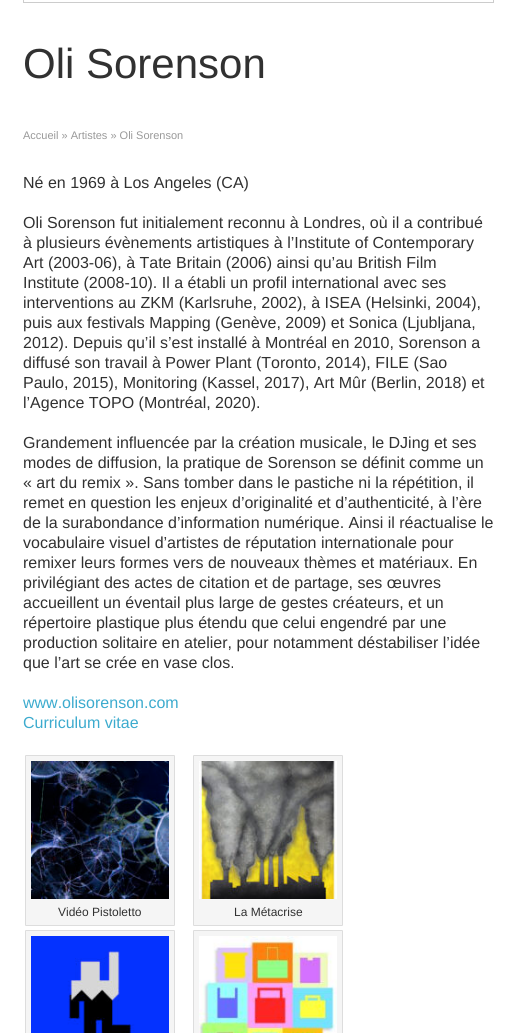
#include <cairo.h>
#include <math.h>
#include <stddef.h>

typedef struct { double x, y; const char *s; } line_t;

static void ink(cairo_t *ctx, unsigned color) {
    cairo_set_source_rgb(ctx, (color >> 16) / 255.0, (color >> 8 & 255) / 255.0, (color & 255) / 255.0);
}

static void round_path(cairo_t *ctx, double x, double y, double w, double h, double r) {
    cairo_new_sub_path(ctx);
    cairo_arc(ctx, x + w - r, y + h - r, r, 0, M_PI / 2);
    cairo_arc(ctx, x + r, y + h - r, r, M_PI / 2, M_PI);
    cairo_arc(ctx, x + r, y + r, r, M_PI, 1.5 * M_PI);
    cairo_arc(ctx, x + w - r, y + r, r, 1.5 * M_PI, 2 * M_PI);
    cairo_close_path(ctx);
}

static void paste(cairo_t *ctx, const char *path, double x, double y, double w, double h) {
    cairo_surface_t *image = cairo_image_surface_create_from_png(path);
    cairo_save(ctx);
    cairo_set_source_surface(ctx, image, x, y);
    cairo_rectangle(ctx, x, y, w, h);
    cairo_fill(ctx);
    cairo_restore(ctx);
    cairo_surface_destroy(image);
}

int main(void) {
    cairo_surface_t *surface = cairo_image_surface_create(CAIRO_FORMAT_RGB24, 517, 1033);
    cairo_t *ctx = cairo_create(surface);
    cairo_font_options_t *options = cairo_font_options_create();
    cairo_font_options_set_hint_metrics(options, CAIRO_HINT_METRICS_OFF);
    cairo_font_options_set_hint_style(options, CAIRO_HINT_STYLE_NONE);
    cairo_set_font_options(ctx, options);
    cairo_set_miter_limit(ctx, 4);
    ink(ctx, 0xFFFFFF);
    cairo_paint(ctx);
    cairo_rectangle(ctx, 23.5, -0.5, 470, 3);
    ink(ctx, 0xCCCCCC);
    cairo_set_line_width(ctx, 1);
    cairo_stroke(ctx);
    cairo_select_font_face(ctx, "Liberation Sans", CAIRO_FONT_SLANT_NORMAL, CAIRO_FONT_WEIGHT_NORMAL);
    cairo_set_font_size(ctx, 42);
    ink(ctx, 0x313131);
    cairo_move_to(ctx, 23, 78);
    cairo_show_text(ctx, "Oli Sorenson");
    cairo_set_font_size(ctx, 11);
    ink(ctx, 0x999999);
    cairo_move_to(ctx, 23, 139);
    cairo_show_text(ctx, "Accueil » Artistes » Oli Sorenson");
    cairo_set_font_size(ctx, 16);
    ink(ctx, 0x313131);
    {
        static const line_t items[] = {
            {23, 188, "Né en 1969 à Los Angeles (CA)"},
            {23, 228, "Oli Sorenson fut initialement reconnu à Londres, où il a contribué"},
            {23, 248, "à plusieurs évènements artistiques à l’Institute of Contemporary"},
            {23, 268, "Art (2003-06), à Tate Britain (2006) ainsi qu’au British Film"},
            {23, 288, "Institute (2008-10). Il a établi un profil international avec ses"},
            {23, 308, "interventions au ZKM (Karlsruhe, 2002), à ISEA (Helsinki, 2004),"},
            {23, 328, "puis aux festivals Mapping (Genève, 2009) et Sonica (Ljubljana,"},
            {23, 348, "2012). Depuis qu’il s’est installé à Montréal en 2010, Sorenson a"},
            {23, 368, "diffusé son travail à Power Plant (Toronto, 2014), FILE (Sao"},
            {23, 388, "Paulo, 2015), Monitoring (Kassel, 2017), Art Mûr (Berlin, 2018) et"},
            {23, 408, "l’Agence TOPO (Montréal, 2020)."},
            {23, 448, "Grandement influencée par la création musicale, le DJing et ses"},
            {23, 468, "modes de diffusion, la pratique de Sorenson se définit comme un"},
            {23, 488, "« art du remix ». Sans tomber dans le pastiche ni la répétition, il"},
            {23, 508, "remet en question les enjeux d’originalité et d’authenticité, à l’ère"},
            {23, 528, "de la surabondance d’information numérique. Ainsi il réactualise le"},
            {23, 548, "vocabulaire visuel d’artistes de réputation internationale pour"},
            {23, 568, "remixer leurs formes vers de nouveaux thèmes et matériaux. En"},
            {23, 588, "privilégiant des actes de citation et de partage, ses œuvres"},
            {23, 608, "accueillent un éventail plus large de gestes créateurs, et un"},
            {23, 628, "répertoire plastique plus étendu que celui engendré par une"},
            {23, 648, "production solitaire en atelier, pour notamment déstabiliser l’idée"},
            {23, 668, "que l’art se crée en vase clos."},
        };
        for (size_t i = 0; i < sizeof items / sizeof *items; i++) {
            cairo_move_to(ctx, items[i].x, items[i].y);
            cairo_show_text(ctx, items[i].s);
        }
    }
    ink(ctx, 0x3CABCE);
    cairo_move_to(ctx, 23, 708);
    cairo_show_text(ctx, "www.olisorenson.com");
    cairo_move_to(ctx, 23, 728);
    cairo_show_text(ctx, "Curriculum vitae");
    ink(ctx, 0xF5F5F5);
    round_path(ctx, 25.5, 755.5, 149, 170, 0.5);
    cairo_fill_preserve(ctx);
    ink(ctx, 0xDDDDDD);
    cairo_stroke(ctx);
    paste(ctx, "media/1.png", 31, 761, 138, 138);
    cairo_set_font_size(ctx, 12);
    ink(ctx, 0x313131);
    cairo_move_to(ctx, 58, 916);
    cairo_show_text(ctx, "Vidéo Pistoletto");
    ink(ctx, 0xF5F5F5);
    round_path(ctx, 193.5, 755.5, 149, 170, 0.5);
    cairo_fill_preserve(ctx);
    ink(ctx, 0xDDDDDD);
    cairo_stroke(ctx);
    paste(ctx, "media/2.png", 199, 761, 138, 138);
    ink(ctx, 0x313131);
    cairo_move_to(ctx, 234, 916);
    cairo_show_text(ctx, "La Métacrise");
    ink(ctx, 0xF5F5F5);
    round_path(ctx, 25.5, 930.5, 149, 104, 0.5);
    cairo_fill_preserve(ctx);
    ink(ctx, 0xDDDDDD);
    cairo_stroke(ctx);
    paste(ctx, "media/3.png", 31, 936, 138, 97);
    ink(ctx, 0xF5F5F5);
    round_path(ctx, 193.5, 930.5, 149, 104, 0.5);
    cairo_fill_preserve(ctx);
    ink(ctx, 0xDDDDDD);
    cairo_stroke(ctx);
    paste(ctx, "media/4.png", 199, 936, 138, 97);
    cairo_surface_write_to_png(surface, "image.png");
    cairo_font_options_destroy(options);
    cairo_destroy(ctx);
    cairo_surface_destroy(surface);
    return 0;
}
